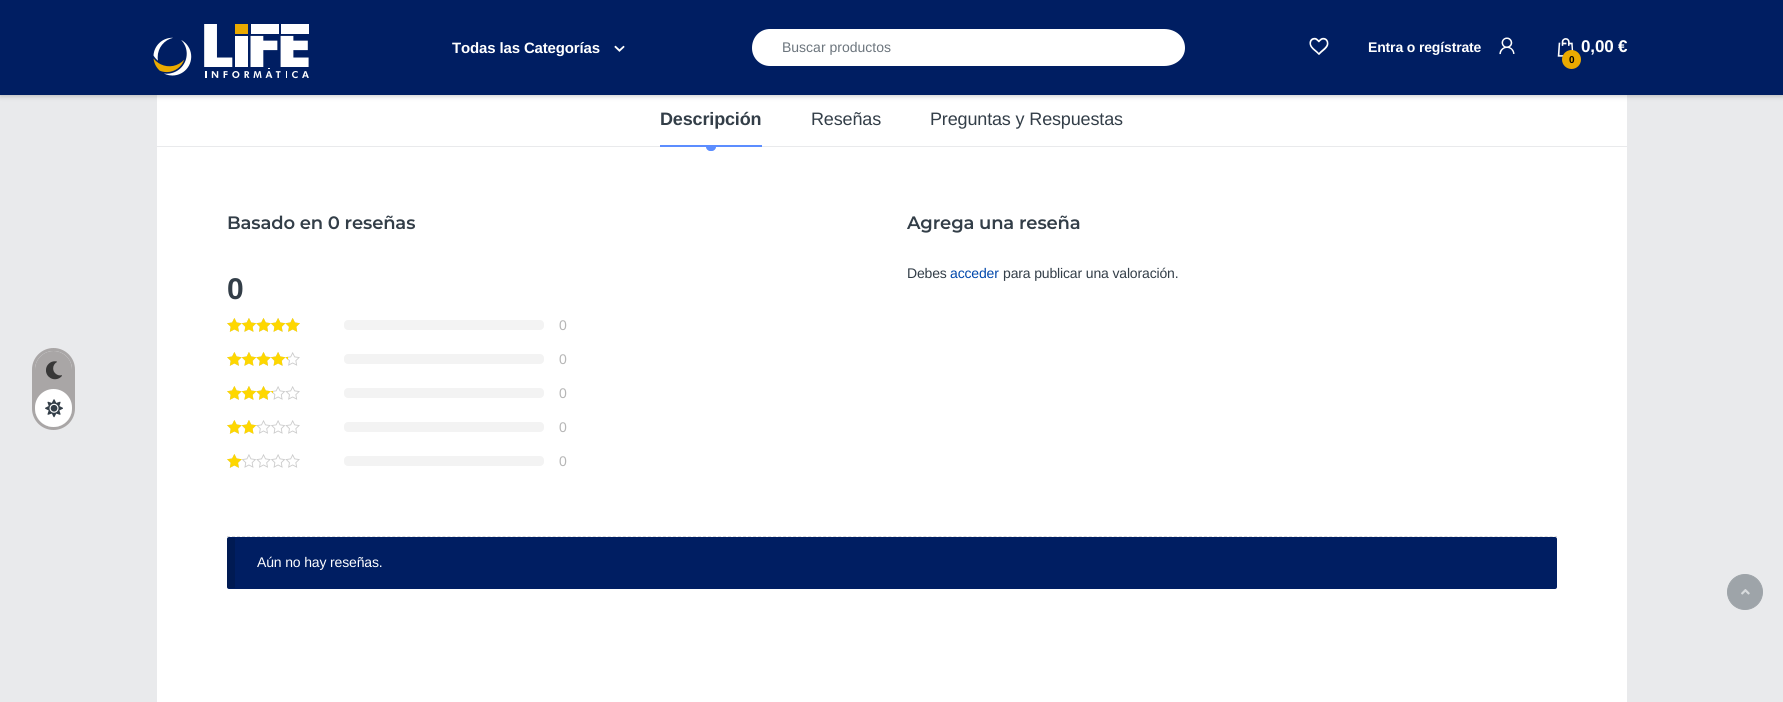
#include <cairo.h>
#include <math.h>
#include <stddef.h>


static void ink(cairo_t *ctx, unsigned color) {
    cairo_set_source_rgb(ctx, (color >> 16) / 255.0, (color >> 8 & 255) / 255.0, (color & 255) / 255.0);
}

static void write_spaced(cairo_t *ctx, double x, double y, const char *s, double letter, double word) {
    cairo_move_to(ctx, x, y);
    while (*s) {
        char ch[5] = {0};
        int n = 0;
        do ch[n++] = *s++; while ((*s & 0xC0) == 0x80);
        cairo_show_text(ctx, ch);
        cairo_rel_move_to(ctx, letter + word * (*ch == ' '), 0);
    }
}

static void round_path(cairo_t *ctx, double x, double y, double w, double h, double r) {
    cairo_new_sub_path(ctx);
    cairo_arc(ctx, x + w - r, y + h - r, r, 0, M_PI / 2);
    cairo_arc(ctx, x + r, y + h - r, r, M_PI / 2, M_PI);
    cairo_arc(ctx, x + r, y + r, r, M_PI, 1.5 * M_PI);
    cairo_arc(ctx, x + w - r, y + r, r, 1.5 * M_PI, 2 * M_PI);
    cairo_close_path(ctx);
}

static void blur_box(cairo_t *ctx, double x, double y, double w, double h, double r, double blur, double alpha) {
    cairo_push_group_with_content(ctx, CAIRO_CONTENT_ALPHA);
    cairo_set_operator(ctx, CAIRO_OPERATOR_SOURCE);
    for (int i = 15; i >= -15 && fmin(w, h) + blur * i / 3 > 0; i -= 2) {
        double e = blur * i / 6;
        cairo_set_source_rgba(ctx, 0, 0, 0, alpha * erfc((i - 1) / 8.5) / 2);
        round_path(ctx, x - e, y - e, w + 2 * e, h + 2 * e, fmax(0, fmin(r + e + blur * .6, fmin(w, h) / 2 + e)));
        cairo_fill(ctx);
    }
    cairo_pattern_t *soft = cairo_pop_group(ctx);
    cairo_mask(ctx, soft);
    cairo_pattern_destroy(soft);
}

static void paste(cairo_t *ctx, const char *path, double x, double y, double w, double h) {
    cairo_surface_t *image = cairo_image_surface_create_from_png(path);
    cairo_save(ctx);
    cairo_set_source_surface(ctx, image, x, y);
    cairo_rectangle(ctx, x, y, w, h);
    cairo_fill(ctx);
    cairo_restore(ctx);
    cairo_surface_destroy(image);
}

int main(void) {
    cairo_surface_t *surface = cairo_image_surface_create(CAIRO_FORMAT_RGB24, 1783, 702);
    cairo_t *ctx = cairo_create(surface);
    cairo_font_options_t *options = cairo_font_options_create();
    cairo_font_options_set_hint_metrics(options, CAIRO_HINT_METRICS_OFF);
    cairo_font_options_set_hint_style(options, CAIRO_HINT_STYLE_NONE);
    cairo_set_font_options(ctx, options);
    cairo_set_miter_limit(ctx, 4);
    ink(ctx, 0xE9EAEC);
    cairo_paint(ctx);
    round_path(ctx, 33.5, 349.5, 40, 79, 20);
    ink(ctx, 0xA9A6A6);
    cairo_set_line_width(ctx, 3);
    cairo_stroke(ctx);
    round_path(ctx, 35, 351, 37, 76, 18.5);
    cairo_fill(ctx);
    paste(ctx, "media/1.png", 46, 361, 16, 19);
    ink(ctx, 0xFFFFFF);
    round_path(ctx, 35, 389, 37, 38, 18.5);
    cairo_fill(ctx);
    paste(ctx, "media/2.png", 45, 399, 18, 19);
    cairo_rectangle(ctx, 157, 95, 1470, 51);
    cairo_fill(ctx);
    ink(ctx, 0x010101);
    blur_box(ctx, 0, 0, 1783, 95, 0, 3, 0.3);
    ink(ctx, 0x001E62);
    cairo_rectangle(ctx, 0, 0, 1783, 95);
    cairo_fill(ctx);
    paste(ctx, "media/3.png", 153, 24, 156, 55);
    cairo_select_font_face(ctx, "Liberation Sans", CAIRO_FONT_SLANT_NORMAL, CAIRO_FONT_WEIGHT_BOLD);
    cairo_set_font_size(ctx, 15);
    ink(ctx, 0xFFFFFF);
    write_spaced(ctx, 452, 53, "Todas las Categorías", -0.15, 0);
    paste(ctx, "media/4.png", 614, 45, 11, 7);
    cairo_new_path(ctx);
    cairo_move_to(ctx, 770, 29);
    cairo_line_to(ctx, 1164, 29);
    cairo_curve_to(ctx, 1176, 29, 1185, 37, 1185, 48);
    cairo_curve_to(ctx, 1185, 58, 1176, 66, 1164, 66);
    cairo_line_to(ctx, 770, 66);
    cairo_curve_to(ctx, 760, 66, 752, 58, 752, 48);
    cairo_curve_to(ctx, 752, 37, 760, 29, 770, 29);
    cairo_close_path(ctx);
    cairo_fill(ctx);
    cairo_select_font_face(ctx, "Liberation Sans", CAIRO_FONT_SLANT_NORMAL, CAIRO_FONT_WEIGHT_NORMAL);
    cairo_set_font_size(ctx, 14);
    ink(ctx, 0x6C757D);
    cairo_move_to(ctx, 782, 52);
    cairo_show_text(ctx, "Buscar productos");
    paste(ctx, "media/5.png", 1309, 37, 20, 18);
    cairo_select_font_face(ctx, "Liberation Sans", CAIRO_FONT_SLANT_NORMAL, CAIRO_FONT_WEIGHT_BOLD);
    ink(ctx, 0xFFFFFF);
    write_spaced(ctx, 1368, 52, "Entra o regístrate", -0.15, 0);
    paste(ctx, "media/6.png", 1499, 37, 16, 18);
    paste(ctx, "media/7.png", 1557, 38, 17, 19);
    cairo_set_font_size(ctx, 17);
    write_spaced(ctx, 1581, 52, "0,00 €", -0.15, 0);
    ink(ctx, 0xEAAA00);
    cairo_new_path(ctx);
    cairo_arc(ctx, 1571.5, 59.5, 9.5, 0, 2 * M_PI);
    cairo_fill(ctx);
    cairo_set_font_size(ctx, 10);
    ink(ctx, 0x000000);
    write_spaced(ctx, 1569, 63, "0", -0.15, 0);
    cairo_set_font_size(ctx, 18);
    ink(ctx, 0x333E48);
    write_spaced(ctx, 660, 125, "Descripción", -0.15, 0);
    ink(ctx, 0x5C8DFF);
    cairo_rectangle(ctx, 660, 145, 102, 2);
    cairo_fill(ctx);
    ink(ctx, 0xFFFFFF);
    cairo_rectangle(ctx, 157, 147, 1470, 555);
    cairo_fill(ctx);
    ink(ctx, 0x5C8DFF);
    cairo_new_path(ctx);
    cairo_move_to(ctx, 706, 147);
    cairo_line_to(ctx, 716, 147);
    cairo_curve_to(ctx, 716, 149, 714, 151, 712, 151);
    cairo_line_to(ctx, 710, 151);
    cairo_curve_to(ctx, 708, 151, 706, 149, 706, 147);
    cairo_close_path(ctx);
    cairo_fill(ctx);
    cairo_select_font_face(ctx, "Liberation Sans", CAIRO_FONT_SLANT_NORMAL, CAIRO_FONT_WEIGHT_NORMAL);
    ink(ctx, 0x333E48);
    write_spaced(ctx, 811, 125, "Reseñas", -0.15, 0);
    write_spaced(ctx, 930, 125, "Preguntas y Respuestas", -0.15, 0);
    cairo_select_font_face(ctx, "Montserrat Thin", CAIRO_FONT_SLANT_NORMAL, CAIRO_FONT_WEIGHT_NORMAL);
    write_spaced(ctx, 227, 229, "Basado en 0 reseñas", -0.15, 0);
    cairo_select_font_face(ctx, "Liberation Sans", CAIRO_FONT_SLANT_NORMAL, CAIRO_FONT_WEIGHT_BOLD);
    cairo_set_font_size(ctx, 30);
    write_spaced(ctx, 227, 299, "0", -0.15, 0);
    paste(ctx, "media/8.png", 227, 318, 73, 14);
    paste(ctx, "media/9.png", 227, 318, 73, 14);
    ink(ctx, 0xF3F3F3);
    round_path(ctx, 344, 320, 200, 10, 4);
    cairo_fill(ctx);
    cairo_select_font_face(ctx, "Liberation Sans", CAIRO_FONT_SLANT_NORMAL, CAIRO_FONT_WEIGHT_NORMAL);
    cairo_set_font_size(ctx, 14);
    ink(ctx, 0xB6B6B6);
    write_spaced(ctx, 559, 330, "0", -0.15, 0);
    paste(ctx, "media/8.png", 227, 352, 73, 14);
    paste(ctx, "media/10.png", 227, 352, 61, 14);
    ink(ctx, 0xF3F3F3);
    round_path(ctx, 344, 354, 200, 10, 4);
    cairo_fill(ctx);
    ink(ctx, 0xB6B6B6);
    write_spaced(ctx, 559, 364, "0", -0.15, 0);
    paste(ctx, "media/8.png", 227, 386, 73, 14);
    paste(ctx, "media/11.png", 227, 386, 46, 14);
    ink(ctx, 0xF3F3F3);
    round_path(ctx, 344, 388, 200, 10, 4);
    cairo_fill(ctx);
    ink(ctx, 0xB6B6B6);
    write_spaced(ctx, 559, 398, "0", -0.15, 0);
    paste(ctx, "media/8.png", 227, 420, 73, 14);
    paste(ctx, "media/12.png", 227, 420, 30, 14);
    ink(ctx, 0xF3F3F3);
    round_path(ctx, 344, 422, 200, 10, 4);
    cairo_fill(ctx);
    ink(ctx, 0xB6B6B6);
    write_spaced(ctx, 559, 432, "0", -0.15, 0);
    paste(ctx, "media/8.png", 227, 454, 73, 14);
    paste(ctx, "media/13.png", 227, 454, 15, 14);
    ink(ctx, 0xF3F3F3);
    round_path(ctx, 344, 456, 200, 10, 4);
    cairo_fill(ctx);
    ink(ctx, 0xB6B6B6);
    write_spaced(ctx, 559, 466, "0", -0.15, 0);
    cairo_select_font_face(ctx, "Montserrat Thin", CAIRO_FONT_SLANT_NORMAL, CAIRO_FONT_WEIGHT_NORMAL);
    cairo_set_font_size(ctx, 18);
    ink(ctx, 0x333E48);
    write_spaced(ctx, 907, 229, "Agrega una reseña", -0.15, 0);
    cairo_select_font_face(ctx, "Liberation Sans", CAIRO_FONT_SLANT_NORMAL, CAIRO_FONT_WEIGHT_NORMAL);
    cairo_set_font_size(ctx, 14);
    write_spaced(ctx, 907, 278, "Debes", -0.15, 0);
    ink(ctx, 0x0047AB);
    write_spaced(ctx, 950, 278, "acceder", -0.15, 0);
    ink(ctx, 0x333E48);
    write_spaced(ctx, 1003, 278, "para publicar una valoración.", -0.15, 0);
    cairo_new_path(ctx);
    cairo_move_to(ctx, 227, 536.5);
    cairo_line_to(ctx, 1557, 536.5);
    ink(ctx, 0xDDDDDD);
    cairo_set_line_width(ctx, 1);
    cairo_set_dash(ctx, (double[]){3, 2.01}, 2, 0);
    cairo_stroke(ctx);
    ink(ctx, 0x001E62);
    round_path(ctx, 227, 537, 1330, 52, 2);
    cairo_fill(ctx);
    cairo_set_source_rgba(ctx, 0, 0, 0, 0.15);
    cairo_rectangle(ctx, 227, 538, 8, 50);
    cairo_fill(ctx);
    ink(ctx, 0xFFFFFF);
    write_spaced(ctx, 257, 567, "Aún no hay reseñas.", -0.15, 0);
    ink(ctx, 0x9EA4A9);
    cairo_new_path(ctx);
    cairo_arc(ctx, 1745, 592, 17.5, 0, 2 * M_PI);
    cairo_fill_preserve(ctx);
    cairo_set_dash(ctx, NULL, 0, 0);
    cairo_stroke(ctx);
    paste(ctx, "media/14.png", 1741, 589, 9, 6);
    cairo_surface_write_to_png(surface, "image.png");
    cairo_font_options_destroy(options);
    cairo_destroy(ctx);
    cairo_surface_destroy(surface);
    return 0;
}
